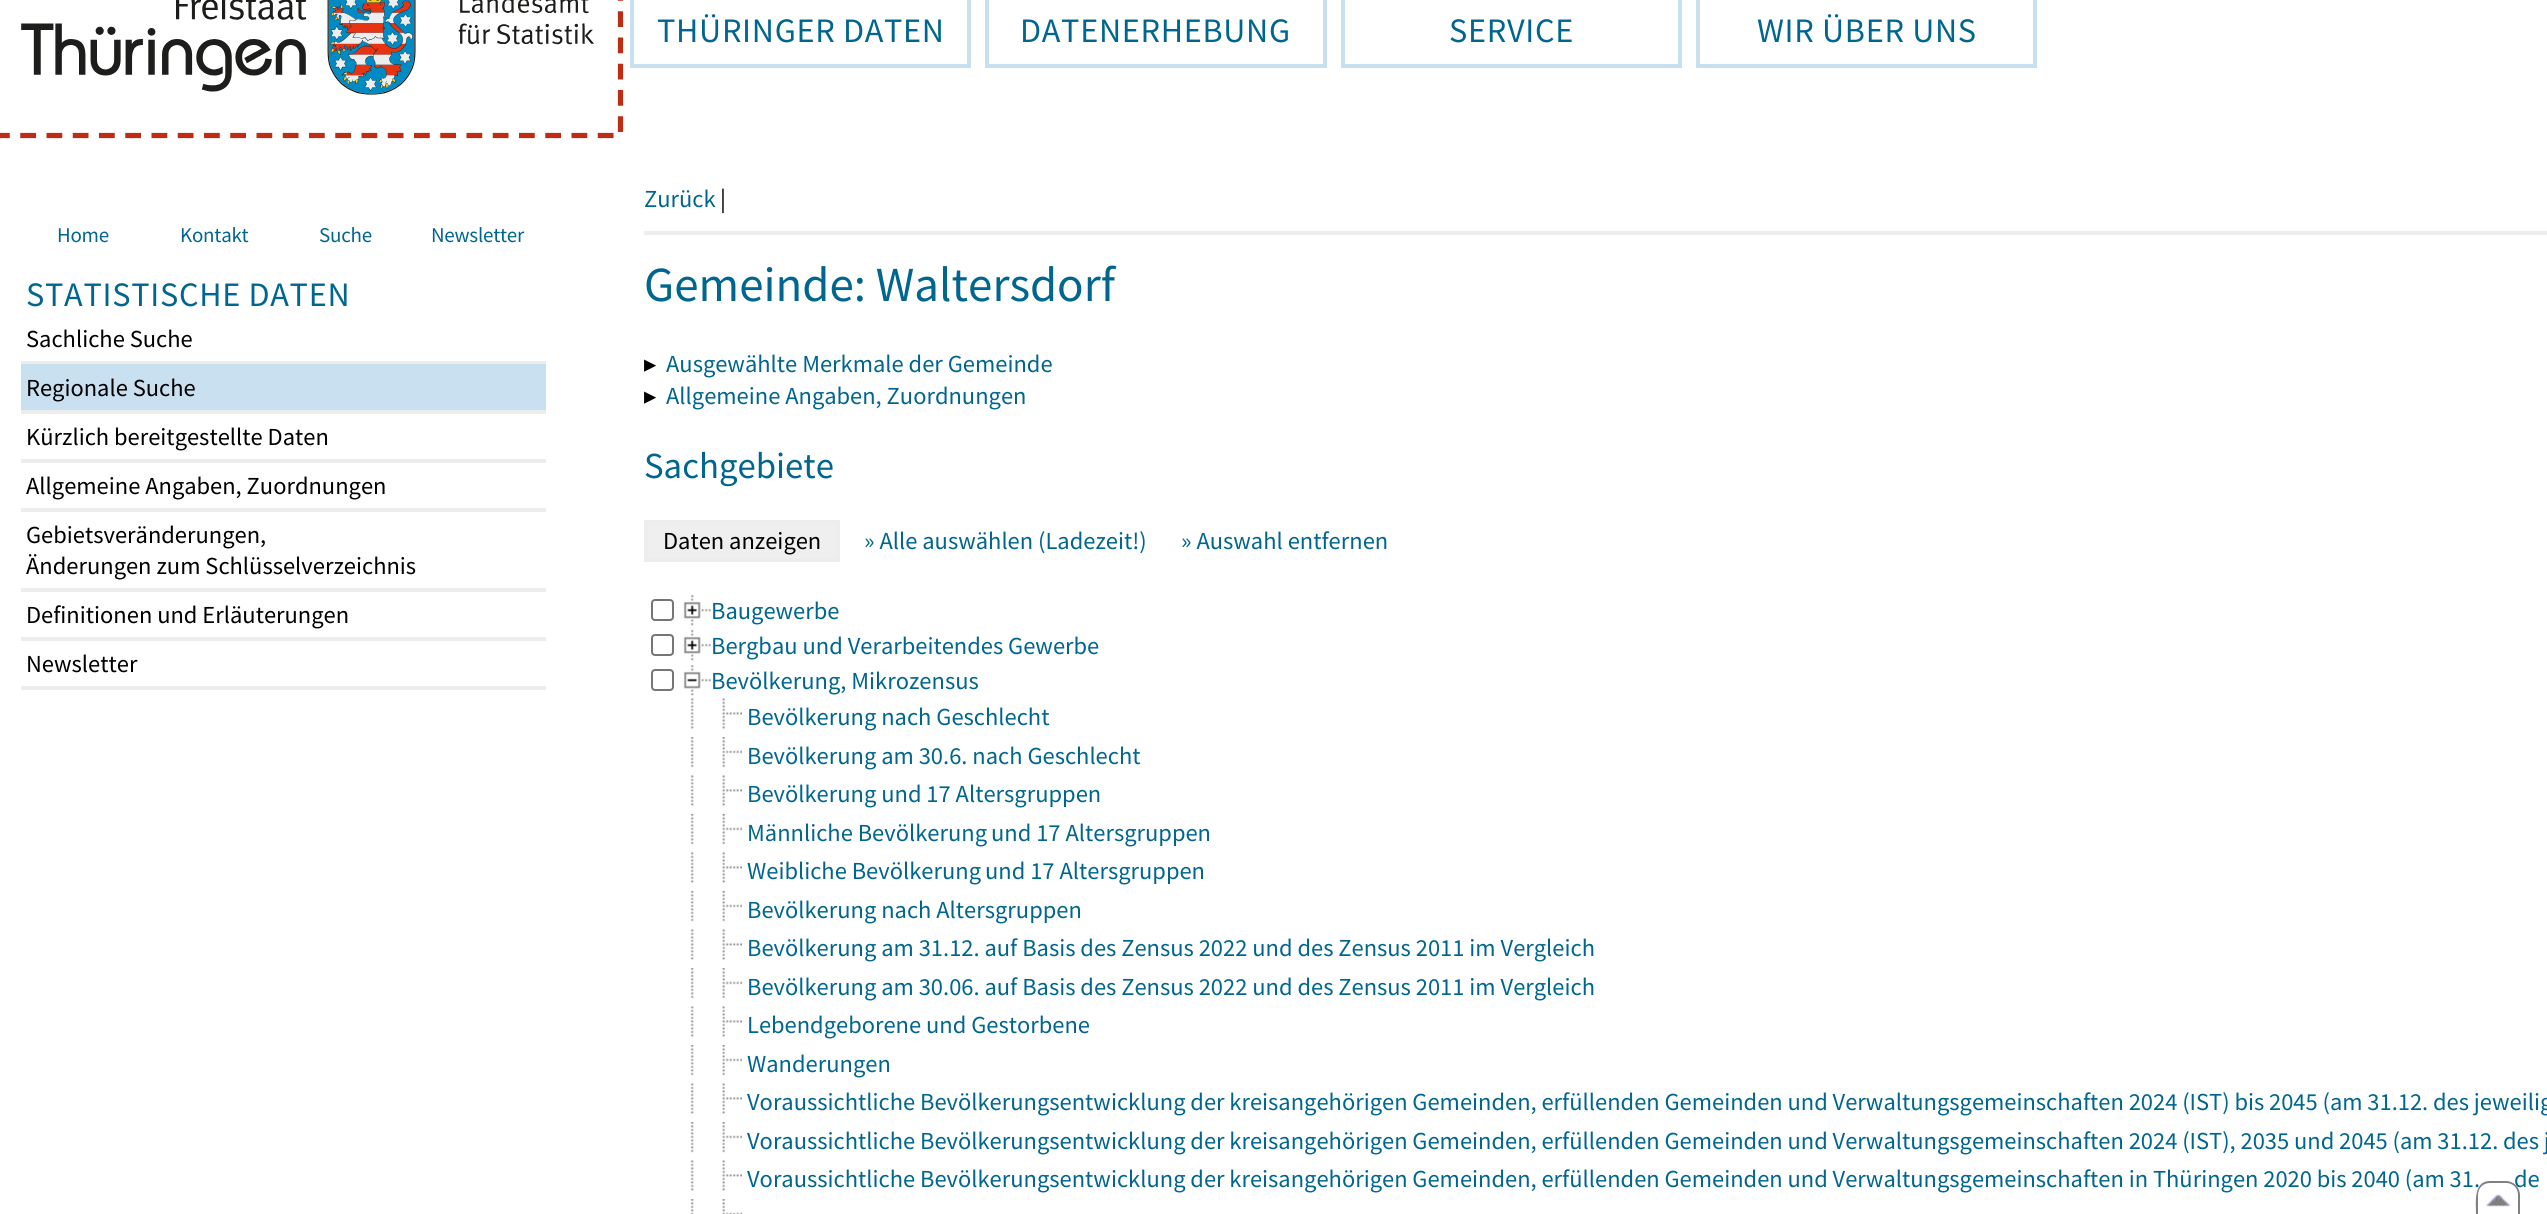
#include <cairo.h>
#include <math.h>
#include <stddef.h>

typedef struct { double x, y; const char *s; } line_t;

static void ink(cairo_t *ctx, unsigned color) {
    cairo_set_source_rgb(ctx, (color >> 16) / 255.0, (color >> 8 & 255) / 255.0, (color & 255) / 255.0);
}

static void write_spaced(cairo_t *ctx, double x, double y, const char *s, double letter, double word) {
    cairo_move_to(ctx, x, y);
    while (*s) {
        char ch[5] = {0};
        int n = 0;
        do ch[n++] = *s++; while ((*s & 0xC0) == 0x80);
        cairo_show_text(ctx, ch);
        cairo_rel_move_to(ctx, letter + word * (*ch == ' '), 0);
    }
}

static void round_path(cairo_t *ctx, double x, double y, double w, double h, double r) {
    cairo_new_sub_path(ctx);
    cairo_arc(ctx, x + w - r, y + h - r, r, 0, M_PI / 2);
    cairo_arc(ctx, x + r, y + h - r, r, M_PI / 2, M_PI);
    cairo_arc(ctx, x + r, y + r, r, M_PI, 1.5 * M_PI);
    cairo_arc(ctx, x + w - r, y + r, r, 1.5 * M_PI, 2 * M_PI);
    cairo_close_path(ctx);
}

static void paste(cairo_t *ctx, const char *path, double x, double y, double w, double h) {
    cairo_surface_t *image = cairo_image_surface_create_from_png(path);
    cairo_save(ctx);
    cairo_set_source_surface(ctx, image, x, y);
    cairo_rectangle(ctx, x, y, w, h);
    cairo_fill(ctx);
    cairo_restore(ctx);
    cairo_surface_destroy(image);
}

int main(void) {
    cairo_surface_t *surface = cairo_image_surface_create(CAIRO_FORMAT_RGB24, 2547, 1214);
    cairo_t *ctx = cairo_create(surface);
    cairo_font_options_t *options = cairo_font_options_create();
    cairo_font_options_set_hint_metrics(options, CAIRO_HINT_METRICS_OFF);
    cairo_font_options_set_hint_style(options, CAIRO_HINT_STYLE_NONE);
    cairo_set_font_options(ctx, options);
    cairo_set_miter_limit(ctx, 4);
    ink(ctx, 0xFFFFFF);
    cairo_paint(ctx);
    paste(ctx, "media/1.png", 21, 0, 573, 95);
    cairo_new_path(ctx);
    cairo_move_to(ctx, -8, -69);
    cairo_line_to(ctx, 620.5, -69);
    cairo_line_to(ctx, 620.5, 135.5);
    cairo_line_to(ctx, -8, 135.5);
    cairo_close_path(ctx);
    ink(ctx, 0xBE2C13);
    cairo_set_line_width(ctx, 5.2);
    cairo_set_dash(ctx, (double[]){15.75, 10.5}, 2, 0);
    cairo_stroke(ctx);
    cairo_rectangle(ctx, 632, -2, 337, 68);
    ink(ctx, 0xC8E0EF);
    cairo_set_line_width(ctx, 4);
    cairo_set_dash(ctx, NULL, 0, 0);
    cairo_stroke(ctx);
    cairo_select_font_face(ctx, "Source Sans Pro", CAIRO_FONT_SLANT_NORMAL, CAIRO_FONT_WEIGHT_NORMAL);
    cairo_set_font_size(ctx, 34.25);
    ink(ctx, 0x00668F);
    write_spaced(ctx, 657, 42, "THÜRINGER DATEN", 0.7, 0);
    cairo_rectangle(ctx, 987, -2, 338, 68);
    ink(ctx, 0xC8E0EF);
    cairo_stroke(ctx);
    ink(ctx, 0x00668F);
    write_spaced(ctx, 1020, 42, "DATENERHEBUNG", 0.7, 0);
    cairo_rectangle(ctx, 1343, -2, 337, 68);
    ink(ctx, 0xC8E0EF);
    cairo_stroke(ctx);
    ink(ctx, 0x00668F);
    write_spaced(ctx, 1449, 42, "SERVICE", 0.7, 0);
    cairo_rectangle(ctx, 1698, -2, 337, 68);
    ink(ctx, 0xC8E0EF);
    cairo_stroke(ctx);
    ink(ctx, 0x00668F);
    write_spaced(ctx, 1757, 42, "WIR ÜBER UNS", 0.7, 0);
    cairo_set_font_size(ctx, 21);
    {
        static const line_t items[] = {
            {57, 242, "Home"},
            {180, 242, "Kontakt"},
            {319, 242, "Suche"},
            {431, 242, "Newsletter"},
        };
        for (size_t i = 0; i < sizeof items / sizeof *items; i++) {
            write_spaced(ctx, items[i].x, items[i].y, items[i].s, -0.25, 0);
        }
    }
    cairo_set_font_size(ctx, 34.25);
    write_spaced(ctx, 26, 306, "STATISTISCHE DATEN", 0.7, 0);
    ink(ctx, 0xEDEDED);
    cairo_rectangle(ctx, 21, 361, 525, 3);
    cairo_fill(ctx);
    cairo_set_font_size(ctx, 24.48);
    ink(ctx, 0x000000);
    cairo_move_to(ctx, 26, 347);
    cairo_show_text(ctx, "Sachliche Suche");
    ink(ctx, 0xC8E0EF);
    cairo_rectangle(ctx, 21, 364, 525, 46);
    cairo_fill(ctx);
    ink(ctx, 0xEDEDED);
    cairo_rectangle(ctx, 21, 410, 525, 4);
    cairo_fill(ctx);
    ink(ctx, 0x000000);
    cairo_move_to(ctx, 26, 396);
    cairo_show_text(ctx, "Regionale Suche");
    ink(ctx, 0xEDEDED);
    cairo_rectangle(ctx, 21, 459, 525, 4);
    cairo_fill(ctx);
    ink(ctx, 0x000000);
    cairo_move_to(ctx, 26, 445);
    cairo_show_text(ctx, "Kürzlich bereitgestellte Daten");
    ink(ctx, 0xEDEDED);
    cairo_rectangle(ctx, 21, 508, 525, 4);
    cairo_fill(ctx);
    ink(ctx, 0x000000);
    cairo_move_to(ctx, 26, 494);
    cairo_show_text(ctx, "Allgemeine Angaben, Zuordnungen");
    ink(ctx, 0xEDEDED);
    cairo_rectangle(ctx, 21, 588, 525, 4);
    cairo_fill(ctx);
    ink(ctx, 0x000000);
    cairo_move_to(ctx, 26, 543);
    cairo_show_text(ctx, "Gebietsveränderungen,");
    cairo_move_to(ctx, 26, 574);
    cairo_show_text(ctx, "Änderungen zum Schlüsselverzeichnis");
    ink(ctx, 0xEDEDED);
    cairo_rectangle(ctx, 21, 637, 525, 4);
    cairo_fill(ctx);
    ink(ctx, 0x000000);
    cairo_move_to(ctx, 26, 623);
    cairo_show_text(ctx, "Definitionen und Erläuterungen");
    ink(ctx, 0xEDEDED);
    cairo_rectangle(ctx, 21, 686, 525, 4);
    cairo_fill(ctx);
    ink(ctx, 0x000000);
    cairo_move_to(ctx, 26, 672);
    cairo_show_text(ctx, "Newsletter");
    ink(ctx, 0x00668F);
    cairo_move_to(ctx, 644, 207);
    cairo_show_text(ctx, "Zurück");
    ink(ctx, 0x000000);
    cairo_move_to(ctx, 720, 207);
    cairo_show_text(ctx, "|");
    ink(ctx, 0xEDEDED);
    cairo_rectangle(ctx, 644, 231, 1903, 4);
    cairo_fill(ctx);
    cairo_set_font_size(ctx, 49);
    ink(ctx, 0x00668F);
    cairo_move_to(ctx, 644, 301);
    cairo_show_text(ctx, "Gemeinde: Waltersdorf");
    cairo_select_font_face(ctx, "DejaVu Sans", CAIRO_FONT_SLANT_NORMAL, CAIRO_FONT_WEIGHT_NORMAL);
    cairo_set_font_size(ctx, 24.48);
    ink(ctx, 0x000000);
    cairo_move_to(ctx, 644, 372);
    cairo_show_text(ctx, "▸");
    cairo_select_font_face(ctx, "Source Sans Pro", CAIRO_FONT_SLANT_NORMAL, CAIRO_FONT_WEIGHT_NORMAL);
    ink(ctx, 0x00668F);
    cairo_move_to(ctx, 666, 372);
    cairo_show_text(ctx, "Ausgewählte Merkmale der Gemeinde");
    cairo_select_font_face(ctx, "DejaVu Sans", CAIRO_FONT_SLANT_NORMAL, CAIRO_FONT_WEIGHT_NORMAL);
    ink(ctx, 0x000000);
    cairo_move_to(ctx, 644, 404);
    cairo_show_text(ctx, "▸");
    cairo_select_font_face(ctx, "Source Sans Pro", CAIRO_FONT_SLANT_NORMAL, CAIRO_FONT_WEIGHT_NORMAL);
    ink(ctx, 0x00668F);
    cairo_move_to(ctx, 666, 404);
    cairo_show_text(ctx, "Allgemeine Angaben, Zuordnungen");
    cairo_set_font_size(ctx, 36.75);
    cairo_move_to(ctx, 644, 478);
    cairo_show_text(ctx, "Sachgebiete");
    ink(ctx, 0xEFEFEF);
    cairo_rectangle(ctx, 646, 522, 192, 38);
    cairo_fill_preserve(ctx);
    ink(ctx, 0xEDEDED);
    cairo_stroke(ctx);
    cairo_set_font_size(ctx, 24.48);
    ink(ctx, 0x000000);
    cairo_move_to(ctx, 663, 549);
    cairo_show_text(ctx, "Daten anzeigen");
    ink(ctx, 0x00668F);
    cairo_move_to(ctx, 864, 549);
    cairo_show_text(ctx, "» Alle auswählen (Ladezeit!)");
    cairo_move_to(ctx, 1181, 549);
    cairo_show_text(ctx, "» Auswahl entfernen");
    round_path(ctx, 652, 600, 21, 20, 3);
    ink(ctx, 0x767676);
    cairo_set_line_width(ctx, 2);
    cairo_stroke(ctx);
    paste(ctx, "media/2.png", 683, 595, 28, 31);
    ink(ctx, 0x00668F);
    cairo_move_to(ctx, 711, 619);
    cairo_show_text(ctx, "Baugewerbe");
    round_path(ctx, 652, 635, 21, 20, 3);
    ink(ctx, 0x767676);
    cairo_stroke(ctx);
    paste(ctx, "media/2.png", 683, 630, 28, 31);
    ink(ctx, 0x00668F);
    cairo_move_to(ctx, 711, 654);
    cairo_show_text(ctx, "Bergbau und Verarbeitendes Gewerbe");
    round_path(ctx, 652, 670, 21, 20, 3);
    ink(ctx, 0x767676);
    cairo_stroke(ctx);
    paste(ctx, "media/3.png", 683, 665, 28, 31);
    ink(ctx, 0x00668F);
    cairo_move_to(ctx, 711, 689);
    cairo_show_text(ctx, "Bevölkerung, Mikrozensus");
    paste(ctx, "media/4.png", 690, 698, 4, 31);
    paste(ctx, "media/5.png", 722, 698, 20, 31);
    cairo_move_to(ctx, 747, 725);
    cairo_show_text(ctx, "Bevölkerung nach Geschlecht");
    paste(ctx, "media/6.png", 690, 737, 4, 31);
    paste(ctx, "media/7.png", 722, 737, 20, 31);
    cairo_move_to(ctx, 747, 764);
    cairo_show_text(ctx, "Bevölkerung am 30.6. nach Geschlecht");
    paste(ctx, "media/4.png", 690, 775, 4, 31);
    paste(ctx, "media/5.png", 722, 775, 20, 31);
    cairo_move_to(ctx, 747, 802);
    cairo_show_text(ctx, "Bevölkerung und 17 Altersgruppen");
    paste(ctx, "media/6.png", 690, 814, 4, 31);
    paste(ctx, "media/7.png", 722, 814, 20, 31);
    cairo_move_to(ctx, 747, 841);
    cairo_show_text(ctx, "Männliche Bevölkerung");
    cairo_move_to(ctx, 991, 841);
    cairo_show_text(ctx, "und 17 Altersgruppen");
    paste(ctx, "media/4.png", 690, 852, 4, 31);
    paste(ctx, "media/5.png", 722, 852, 20, 31);
    cairo_move_to(ctx, 747, 879);
    cairo_show_text(ctx, "Weibliche Bevölkerung");
    cairo_move_to(ctx, 985, 879);
    cairo_show_text(ctx, "und 17 Altersgruppen");
    paste(ctx, "media/6.png", 690, 891, 4, 31);
    paste(ctx, "media/7.png", 722, 891, 20, 31);
    cairo_move_to(ctx, 747, 918);
    cairo_show_text(ctx, "Bevölkerung nach Altersgruppen");
    paste(ctx, "media/4.png", 690, 929, 4, 31);
    paste(ctx, "media/5.png", 722, 929, 20, 31);
    cairo_move_to(ctx, 747, 956);
    cairo_show_text(ctx, "Bevölkerung am 31.12. auf Basis des Zensus 2022 und des Zensus 2011 im Vergleich");
    paste(ctx, "media/6.png", 690, 968, 4, 31);
    paste(ctx, "media/7.png", 722, 968, 20, 31);
    cairo_move_to(ctx, 747, 995);
    cairo_show_text(ctx, "Bevölkerung am 30.06. auf Basis des Zensus 2022 und des Zensus 2011 im Vergleich");
    paste(ctx, "media/4.png", 690, 1006, 4, 31);
    paste(ctx, "media/5.png", 722, 1006, 20, 31);
    cairo_move_to(ctx, 747, 1033);
    cairo_show_text(ctx, "Lebendgeborene und Gestorbene");
    paste(ctx, "media/6.png", 690, 1045, 4, 31);
    paste(ctx, "media/7.png", 722, 1045, 20, 31);
    cairo_move_to(ctx, 747, 1072);
    cairo_show_text(ctx, "Wanderungen");
    paste(ctx, "media/4.png", 690, 1083, 4, 31);
    paste(ctx, "media/5.png", 722, 1083, 20, 31);
    write_spaced(ctx, 747, 1110, "Voraussichtliche Bevölkerungsentwicklung der kreisangehörigen Gemeinden, erfüllenden Gemeinden und Verwaltungsgemeinschaften 2024 (IST) bis 2045 (am 31.12. des jeweilig", 0, -0.1);
    paste(ctx, "media/6.png", 690, 1122, 4, 31);
    paste(ctx, "media/7.png", 722, 1122, 20, 31);
    write_spaced(ctx, 747, 1149, "Voraussichtliche Bevölkerungsentwicklung der kreisangehörigen Gemeinden, erfüllenden Gemeinden und Verwaltungsgemeinschaften 2024 (IST), 2035 und 2045 (am 31.12. des j", 0, -0.1);
    paste(ctx, "media/4.png", 690, 1160, 4, 31);
    paste(ctx, "media/5.png", 722, 1160, 20, 31);
    write_spaced(ctx, 747, 1187, "Voraussichtliche Bevölkerungsentwicklung der kreisangehörigen Gemeinden, erfüllenden Gemeinden und Verwaltungsgemeinschaften in Thüringen 2020 bis 2040 (am 31.", 0, -0.1);
    write_spaced(ctx, 2514, 1187, "de", 0, -0.1);
    paste(ctx, "media/8.png", 690, 1199, 4, 15);
    paste(ctx, "media/9.png", 722, 1199, 20, 15);
    ink(ctx, 0x808080);
    cairo_set_fill_rule(ctx, CAIRO_FILL_RULE_EVEN_ODD);
    cairo_new_path(ctx);
    cairo_move_to(ctx, 2490, 1181);
    cairo_line_to(ctx, 2506, 1181);
    cairo_curve_to(ctx, 2514, 1181, 2520, 1188, 2520, 1195);
    cairo_line_to(ctx, 2520, 1214);
    cairo_line_to(ctx, 2476, 1214);
    cairo_curve_to(ctx, 2476, 1203, 2473, 1181, 2490, 1181);
    cairo_close_path(ctx);
    cairo_move_to(ctx, 2490, 1183);
    cairo_line_to(ctx, 2506, 1183);
    cairo_curve_to(ctx, 2513, 1183, 2518, 1188, 2518, 1195);
    cairo_line_to(ctx, 2518, 1214);
    cairo_line_to(ctx, 2478, 1214);
    cairo_line_to(ctx, 2478, 1195);
    cairo_curve_to(ctx, 2478, 1188, 2483, 1183, 2490, 1183);
    cairo_close_path(ctx);
    cairo_fill(ctx);
    paste(ctx, "media/10.png", 2486, 1194, 24, 13);
    cairo_surface_write_to_png(surface, "image.png");
    cairo_font_options_destroy(options);
    cairo_destroy(ctx);
    cairo_surface_destroy(surface);
    return 0;
}
